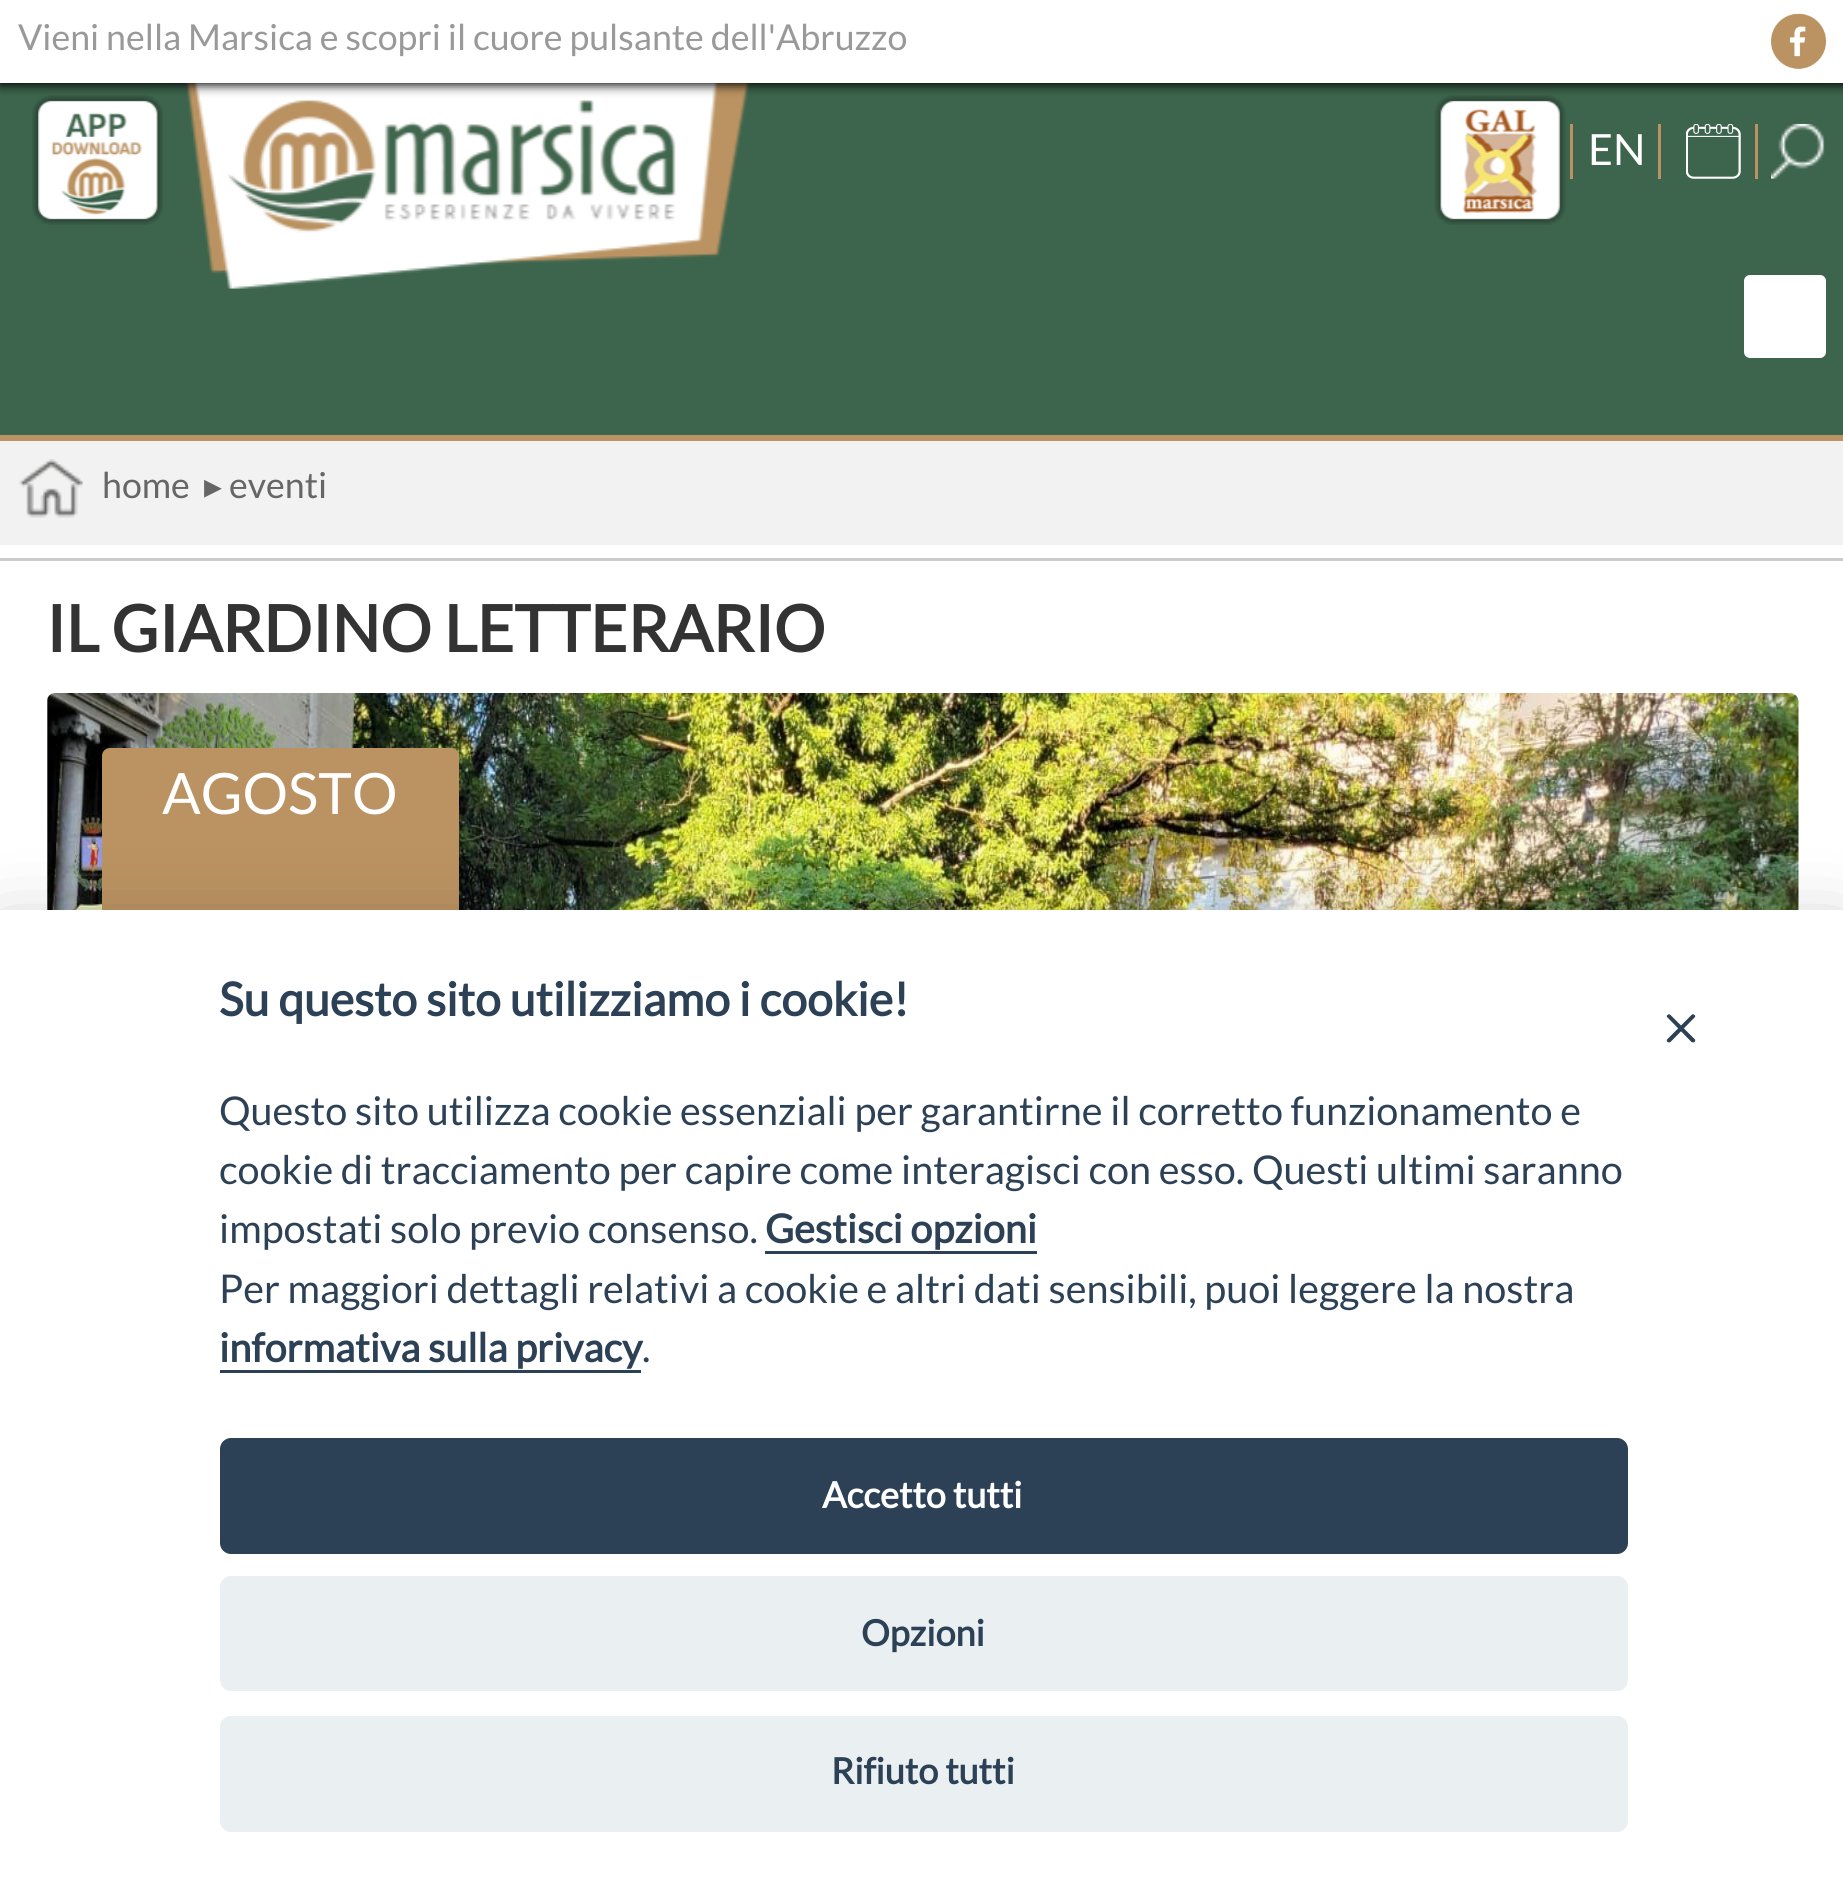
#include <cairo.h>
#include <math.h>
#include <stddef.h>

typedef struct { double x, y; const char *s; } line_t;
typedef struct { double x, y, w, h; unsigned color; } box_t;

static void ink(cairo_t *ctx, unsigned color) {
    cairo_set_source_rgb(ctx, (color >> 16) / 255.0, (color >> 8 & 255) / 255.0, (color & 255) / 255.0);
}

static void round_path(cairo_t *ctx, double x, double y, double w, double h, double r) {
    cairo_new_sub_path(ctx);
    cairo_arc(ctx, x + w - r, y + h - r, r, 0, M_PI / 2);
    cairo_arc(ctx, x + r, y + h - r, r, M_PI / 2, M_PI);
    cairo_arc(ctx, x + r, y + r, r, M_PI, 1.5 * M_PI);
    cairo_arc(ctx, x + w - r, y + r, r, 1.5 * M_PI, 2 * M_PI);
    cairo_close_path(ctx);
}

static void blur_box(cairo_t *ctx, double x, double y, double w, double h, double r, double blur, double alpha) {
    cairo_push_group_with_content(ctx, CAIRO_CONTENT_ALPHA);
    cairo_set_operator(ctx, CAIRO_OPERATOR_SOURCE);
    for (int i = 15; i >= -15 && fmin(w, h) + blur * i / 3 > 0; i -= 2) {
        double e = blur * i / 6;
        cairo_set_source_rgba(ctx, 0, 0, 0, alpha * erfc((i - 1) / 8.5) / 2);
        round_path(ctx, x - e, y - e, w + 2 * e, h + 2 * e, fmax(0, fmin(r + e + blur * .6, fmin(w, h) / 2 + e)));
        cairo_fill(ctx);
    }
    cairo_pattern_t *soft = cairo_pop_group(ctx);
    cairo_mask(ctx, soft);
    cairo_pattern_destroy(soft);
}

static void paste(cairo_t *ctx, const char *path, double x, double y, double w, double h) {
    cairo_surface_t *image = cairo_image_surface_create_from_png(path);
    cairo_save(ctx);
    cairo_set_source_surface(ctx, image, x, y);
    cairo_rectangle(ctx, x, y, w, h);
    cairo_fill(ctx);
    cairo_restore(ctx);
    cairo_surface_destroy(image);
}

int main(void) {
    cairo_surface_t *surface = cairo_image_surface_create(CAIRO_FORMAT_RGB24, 1843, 1891);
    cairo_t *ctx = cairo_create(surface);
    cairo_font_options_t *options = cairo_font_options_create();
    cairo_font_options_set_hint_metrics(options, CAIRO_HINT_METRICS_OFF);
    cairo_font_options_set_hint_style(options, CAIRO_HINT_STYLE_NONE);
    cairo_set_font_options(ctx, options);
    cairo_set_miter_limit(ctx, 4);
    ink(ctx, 0xFFFFFF);
    cairo_paint(ctx);
    ink(ctx, 0x3D654D);
    cairo_rectangle(ctx, 0, 83, 1843, 352);
    cairo_fill(ctx);
    paste(ctx, "media/4.png", 185, 83, 565, 206);
    ink(ctx, 0x000000);
    blur_box(ctx, 0, 3, 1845, 82, 0, 5.5, 1);
    ink(ctx, 0xFFFFFF);
    cairo_rectangle(ctx, 0, 0, 1843, 83);
    cairo_fill(ctx);
    cairo_select_font_face(ctx, "Lato", CAIRO_FONT_SLANT_NORMAL, CAIRO_FONT_WEIGHT_NORMAL);
    cairo_set_font_size(ctx, 35.75);
    ink(ctx, 0x999999);
    cairo_move_to(ctx, 18, 50);
    cairo_show_text(ctx, "Vieni nella Marsica e scopri il cuore pulsante dell'Abruzzo");
    paste(ctx, "media/1.png", 1771, 13, 55, 56);
    paste(ctx, "media/2.png", 32, 95, 131, 130);
    paste(ctx, "media/3.png", 1434, 95, 132, 130);
    {
        static const box_t items[] = {
            {0, 435, 1843, 6, 0xBB9362},
            {1658, 124, 3, 55, 0xBB9362},
            {1570, 124, 3, 55, 0xBB9362},
        };
        for (size_t i = 0; i < sizeof items / sizeof *items; i++) {
            ink(ctx, items[i].color);
            cairo_rectangle(ctx, items[i].x, items[i].y, items[i].w, items[i].h);
            cairo_fill(ctx);
        }
    }
    cairo_set_font_size(ctx, 43);
    ink(ctx, 0xFFFFFF);
    cairo_move_to(ctx, 1588, 165);
    cairo_show_text(ctx, "EN");
    paste(ctx, "media/5.png", 1686, 124, 55, 55);
    ink(ctx, 0xBB9362);
    cairo_rectangle(ctx, 1755, 124, 3, 55);
    cairo_fill(ctx);
    paste(ctx, "media/6.png", 1771, 123, 54, 56);
    ink(ctx, 0xFFFFFF);
    round_path(ctx, 1744, 275, 82, 83, 6);
    cairo_fill(ctx);
    ink(ctx, 0xF2F2F2);
    cairo_rectangle(ctx, 0, 441, 1843, 104);
    cairo_fill(ctx);
    paste(ctx, "media/7.png", 18, 459, 65, 59);
    cairo_set_font_size(ctx, 35.75);
    ink(ctx, 0x666666);
    cairo_move_to(ctx, 102, 498);
    cairo_show_text(ctx, "home");
    cairo_select_font_face(ctx, "DejaVu Sans", CAIRO_FONT_SLANT_NORMAL, CAIRO_FONT_WEIGHT_NORMAL);
    cairo_move_to(ctx, 204, 498);
    cairo_show_text(ctx, "▸");
    cairo_select_font_face(ctx, "Lato", CAIRO_FONT_SLANT_NORMAL, CAIRO_FONT_WEIGHT_NORMAL);
    cairo_move_to(ctx, 229, 498);
    cairo_show_text(ctx, "eventi");
    ink(ctx, 0xCCCCCC);
    cairo_rectangle(ctx, 0, 558, 1843, 3);
    cairo_fill(ctx);
    cairo_select_font_face(ctx, "Lato", CAIRO_FONT_SLANT_NORMAL, CAIRO_FONT_WEIGHT_BOLD);
    cairo_set_font_size(ctx, 64.3);
    ink(ctx, 0x333333);
    cairo_move_to(ctx, 46, 652);
    cairo_show_text(ctx, "IL GIARDINO LETTERARIO");
    paste(ctx, "media/8.png", 47, 693, 1752, 217);
    ink(ctx, 0xBB9362);
    round_path(ctx, 102, 748, 357, 358, 8);
    cairo_fill(ctx);
    cairo_select_font_face(ctx, "Lato", CAIRO_FONT_SLANT_NORMAL, CAIRO_FONT_WEIGHT_NORMAL);
    cairo_set_font_size(ctx, 57);
    ink(ctx, 0xFFFFFF);
    cairo_move_to(ctx, 162, 814);
    cairo_show_text(ctx, "AGOSTO");
    ink(ctx, 0x020203);
    blur_box(ctx, 0, 938, 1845, 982, 0, 41, 0.28);
    ink(ctx, 0xFFFFFF);
    cairo_rectangle(ctx, 0, 910, 1843, 981);
    cairo_fill(ctx);
    cairo_select_font_face(ctx, "Lato", CAIRO_FONT_SLANT_NORMAL, CAIRO_FONT_WEIGHT_BOLD);
    cairo_set_font_size(ctx, 46.25);
    ink(ctx, 0x2D4156);
    cairo_move_to(ctx, 219, 1016);
    cairo_show_text(ctx, "Su questo sito utilizziamo i cookie!");
    cairo_new_path(ctx);
    cairo_move_to(ctx, 1694.5, 1015);
    cairo_curve_to(ctx, 1695.5, 1015.5, 1695.5, 1017, 1694.5, 1017.5);
    cairo_line_to(ctx, 1670.5, 1042);
    cairo_curve_to(ctx, 1669.5, 1042.5, 1668.5, 1042.5, 1667.5, 1042);
    cairo_curve_to(ctx, 1666.5, 1041, 1666.5, 1039.5, 1667.5, 1039);
    cairo_line_to(ctx, 1691.5, 1015);
    cairo_curve_to(ctx, 1692.5, 1014, 1693.5, 1014, 1694.5, 1015);
    cairo_close_path(ctx);
    cairo_fill(ctx);
    cairo_new_path(ctx);
    cairo_move_to(ctx, 1667.5, 1015);
    cairo_curve_to(ctx, 1668.5, 1014, 1669.5, 1014, 1670.5, 1015);
    cairo_line_to(ctx, 1694.5, 1039);
    cairo_curve_to(ctx, 1695.5, 1039.5, 1695.5, 1041, 1694.5, 1042);
    cairo_curve_to(ctx, 1693.5, 1042.5, 1692.5, 1042.5, 1691.5, 1042);
    cairo_line_to(ctx, 1667.5, 1017.5);
    cairo_curve_to(ctx, 1666.5, 1017, 1666.5, 1015.5, 1667.5, 1015);
    cairo_close_path(ctx);
    cairo_fill(ctx);
    cairo_select_font_face(ctx, "Lato", CAIRO_FONT_SLANT_NORMAL, CAIRO_FONT_WEIGHT_NORMAL);
    cairo_set_font_size(ctx, 39.6);
    {
        static const line_t items[] = {
            {219, 1125, "Questo sito utilizza cookie essenziali per garantirne il corretto funzionamento e"},
            {219, 1184, "cookie di tracciamento per capire come interagisci con esso. Questi ultimi saranno"},
            {219, 1243, "impostati solo previo consenso."},
        };
        for (size_t i = 0; i < sizeof items / sizeof *items; i++) {
            cairo_move_to(ctx, items[i].x, items[i].y);
            cairo_show_text(ctx, items[i].s);
        }
    }
    cairo_select_font_face(ctx, "Lato", CAIRO_FONT_SLANT_NORMAL, CAIRO_FONT_WEIGHT_BOLD);
    cairo_move_to(ctx, 765, 1243);
    cairo_show_text(ctx, "Gestisci opzioni");
    cairo_rectangle(ctx, 765, 1251, 272, 3);
    cairo_fill(ctx);
    cairo_select_font_face(ctx, "Lato", CAIRO_FONT_SLANT_NORMAL, CAIRO_FONT_WEIGHT_NORMAL);
    cairo_move_to(ctx, 219, 1303);
    cairo_show_text(ctx, "Per maggiori dettagli relativi a cookie e altri dati sensibili, puoi leggere la nostra");
    cairo_select_font_face(ctx, "Lato", CAIRO_FONT_SLANT_NORMAL, CAIRO_FONT_WEIGHT_BOLD);
    cairo_move_to(ctx, 219, 1362);
    cairo_show_text(ctx, "informativa sulla privacy");
    cairo_rectangle(ctx, 220, 1370, 421, 3);
    cairo_fill(ctx);
    cairo_select_font_face(ctx, "Lato", CAIRO_FONT_SLANT_NORMAL, CAIRO_FONT_WEIGHT_NORMAL);
    cairo_move_to(ctx, 642, 1362);
    cairo_show_text(ctx, ".");
    round_path(ctx, 220, 1438, 1408, 116, 11);
    cairo_fill(ctx);
    cairo_select_font_face(ctx, "Lato", CAIRO_FONT_SLANT_NORMAL, CAIRO_FONT_WEIGHT_BOLD);
    cairo_set_font_size(ctx, 36);
    ink(ctx, 0xFFFFFF);
    cairo_move_to(ctx, 822, 1508);
    cairo_show_text(ctx, "Accetto tutti");
    ink(ctx, 0xEAEFF2);
    round_path(ctx, 220, 1576, 1408, 115, 11);
    cairo_fill(ctx);
    ink(ctx, 0x2D4156);
    cairo_move_to(ctx, 861, 1646);
    cairo_show_text(ctx, "Opzioni");
    ink(ctx, 0xEAEFF2);
    round_path(ctx, 220, 1716, 1408, 116, 11);
    cairo_fill(ctx);
    ink(ctx, 0x2D4156);
    cairo_move_to(ctx, 831, 1784);
    cairo_show_text(ctx, "Rifiuto tutti");
    cairo_surface_write_to_png(surface, "image.png");
    cairo_font_options_destroy(options);
    cairo_destroy(ctx);
    cairo_surface_destroy(surface);
    return 0;
}
